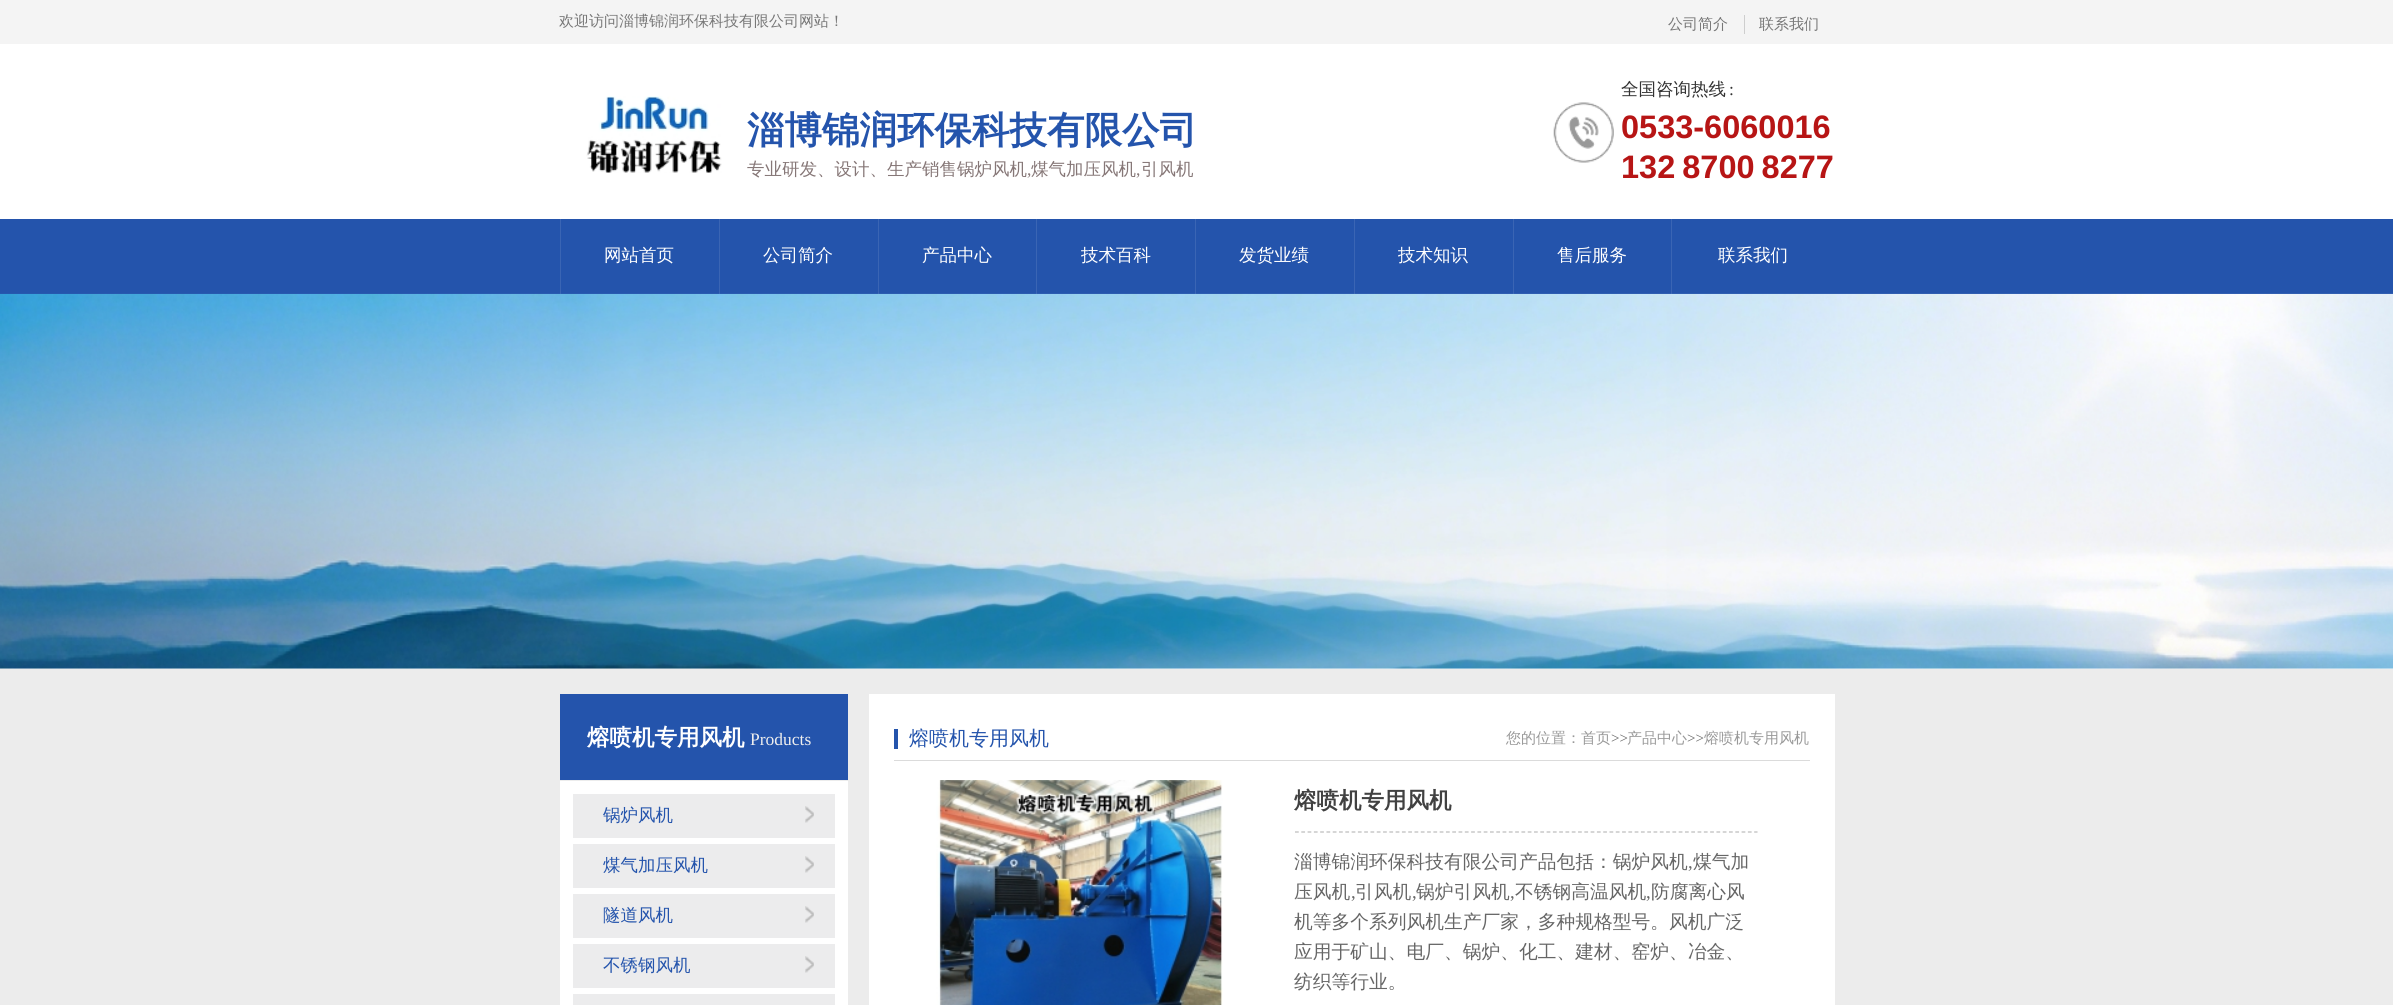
#include <cairo.h>
#include <math.h>
#include <stddef.h>

typedef struct { double x, y; const char *s; } line_t;
typedef struct { double x, y, w, h; unsigned color; } box_t;

static void ink(cairo_t *ctx, unsigned color) {
    cairo_set_source_rgb(ctx, (color >> 16) / 255.0, (color >> 8 & 255) / 255.0, (color & 255) / 255.0);
}

static void write_spaced(cairo_t *ctx, double x, double y, const char *s, double letter, double word) {
    cairo_move_to(ctx, x, y);
    while (*s) {
        char ch[5] = {0};
        int n = 0;
        do ch[n++] = *s++; while ((*s & 0xC0) == 0x80);
        cairo_show_text(ctx, ch);
        cairo_rel_move_to(ctx, letter + word * (*ch == ' '), 0);
    }
}

static void paste(cairo_t *ctx, const char *path, double x, double y, double w, double h) {
    cairo_surface_t *image = cairo_image_surface_create_from_png(path);
    cairo_save(ctx);
    cairo_set_source_surface(ctx, image, x, y);
    cairo_rectangle(ctx, x, y, w, h);
    cairo_fill(ctx);
    cairo_restore(ctx);
    cairo_surface_destroy(image);
}

int main(void) {
    cairo_surface_t *surface = cairo_image_surface_create(CAIRO_FORMAT_RGB24, 2393, 1005);
    cairo_t *ctx = cairo_create(surface);
    cairo_font_options_t *options = cairo_font_options_create();
    cairo_font_options_set_hint_metrics(options, CAIRO_HINT_METRICS_OFF);
    cairo_font_options_set_hint_style(options, CAIRO_HINT_STYLE_NONE);
    cairo_set_font_options(ctx, options);
    cairo_set_miter_limit(ctx, 4);
    ink(ctx, 0xFFFFFF);
    cairo_paint(ctx);
    ink(ctx, 0xF4F4F4);
    cairo_rectangle(ctx, 0, 0, 2393, 44);
    cairo_fill(ctx);
    cairo_select_font_face(ctx, "WenQuanYi Zen Hei Medium", CAIRO_FONT_SLANT_NORMAL, CAIRO_FONT_WEIGHT_NORMAL);
    cairo_set_font_size(ctx, 15);
    ink(ctx, 0x777777);
    cairo_move_to(ctx, 559, 26);
    cairo_show_text(ctx, "欢迎访问淄博锦润环保科技有限公司网站！");
    ink(ctx, 0xCECECE);
    cairo_rectangle(ctx, 1744, 15, 1, 19);
    cairo_fill(ctx);
    ink(ctx, 0x777777);
    cairo_move_to(ctx, 1668, 29);
    cairo_show_text(ctx, "公司简介");
    cairo_move_to(ctx, 1759, 29);
    cairo_show_text(ctx, "联系我们");
    paste(ctx, "media/1.png", 586, 96, 136, 77);
    cairo_select_font_face(ctx, "WenQuanYi Zen Hei", CAIRO_FONT_SLANT_NORMAL, CAIRO_FONT_WEIGHT_BOLD);
    cairo_set_font_size(ctx, 37.5);
    ink(ctx, 0x2454AC);
    cairo_move_to(ctx, 747, 143);
    cairo_show_text(ctx, "淄博锦润环保科技有限公司");
    cairo_select_font_face(ctx, "WenQuanYi Zen Hei Medium", CAIRO_FONT_SLANT_NORMAL, CAIRO_FONT_WEIGHT_NORMAL);
    cairo_set_font_size(ctx, 17.5);
    ink(ctx, 0x867777);
    cairo_move_to(ctx, 747, 175);
    cairo_show_text(ctx, "专业研发、设计、生产销售锅炉风机");
    cairo_select_font_face(ctx, "Liberation Serif", CAIRO_FONT_SLANT_NORMAL, CAIRO_FONT_WEIGHT_NORMAL);
    cairo_move_to(ctx, 1027, 175);
    cairo_show_text(ctx, ",");
    cairo_select_font_face(ctx, "WenQuanYi Zen Hei Medium", CAIRO_FONT_SLANT_NORMAL, CAIRO_FONT_WEIGHT_NORMAL);
    cairo_move_to(ctx, 1031, 175);
    cairo_show_text(ctx, "煤气加压风机");
    cairo_select_font_face(ctx, "Liberation Serif", CAIRO_FONT_SLANT_NORMAL, CAIRO_FONT_WEIGHT_NORMAL);
    cairo_move_to(ctx, 1136, 175);
    cairo_show_text(ctx, ",");
    cairo_select_font_face(ctx, "WenQuanYi Zen Hei Medium", CAIRO_FONT_SLANT_NORMAL, CAIRO_FONT_WEIGHT_NORMAL);
    cairo_move_to(ctx, 1141, 175);
    cairo_show_text(ctx, "引风机");
    paste(ctx, "media/2.png", 1553, 102, 61, 61);
    ink(ctx, 0x333333);
    cairo_move_to(ctx, 1621, 95);
    cairo_show_text(ctx, "全国咨询热线");
    cairo_select_font_face(ctx, "Liberation Serif", CAIRO_FONT_SLANT_NORMAL, CAIRO_FONT_WEIGHT_NORMAL);
    cairo_move_to(ctx, 1729, 95);
    cairo_show_text(ctx, ":");
    cairo_select_font_face(ctx, "Liberation Sans", CAIRO_FONT_SLANT_NORMAL, CAIRO_FONT_WEIGHT_BOLD);
    cairo_set_font_size(ctx, 32.5);
    ink(ctx, 0xB71515);
    cairo_move_to(ctx, 1621, 138);
    cairo_show_text(ctx, "0533-6060016");
    write_spaced(ctx, 1621, 178, "132 8700 8277", 0, -2);
    ink(ctx, 0x2454AC);
    cairo_rectangle(ctx, 0, 219, 2393, 75);
    cairo_fill(ctx);
    ink(ctx, 0x3A65B4);
    cairo_rectangle(ctx, 560, 219, 1, 75);
    cairo_fill(ctx);
    cairo_select_font_face(ctx, "WenQuanYi Zen Hei Medium", CAIRO_FONT_SLANT_NORMAL, CAIRO_FONT_WEIGHT_NORMAL);
    cairo_set_font_size(ctx, 17.5);
    ink(ctx, 0xFFFFFF);
    cairo_move_to(ctx, 604, 261);
    cairo_show_text(ctx, "网站首页");
    ink(ctx, 0x3A65B4);
    cairo_rectangle(ctx, 719, 219, 1, 75);
    cairo_fill(ctx);
    ink(ctx, 0xFFFFFF);
    cairo_move_to(ctx, 763, 261);
    cairo_show_text(ctx, "公司简介");
    ink(ctx, 0x3A65B4);
    cairo_rectangle(ctx, 878, 219, 1, 75);
    cairo_fill(ctx);
    ink(ctx, 0xFFFFFF);
    cairo_move_to(ctx, 922, 261);
    cairo_show_text(ctx, "产品中心");
    ink(ctx, 0x3A65B4);
    cairo_rectangle(ctx, 1036, 219, 1, 75);
    cairo_fill(ctx);
    ink(ctx, 0xFFFFFF);
    cairo_move_to(ctx, 1081, 261);
    cairo_show_text(ctx, "技术百科");
    ink(ctx, 0x3A65B4);
    cairo_rectangle(ctx, 1195, 219, 1, 75);
    cairo_fill(ctx);
    ink(ctx, 0xFFFFFF);
    cairo_move_to(ctx, 1239, 261);
    cairo_show_text(ctx, "发货业绩");
    ink(ctx, 0x3A65B4);
    cairo_rectangle(ctx, 1354, 219, 1, 75);
    cairo_fill(ctx);
    ink(ctx, 0xFFFFFF);
    cairo_move_to(ctx, 1398, 261);
    cairo_show_text(ctx, "技术知识");
    ink(ctx, 0x3A65B4);
    cairo_rectangle(ctx, 1513, 219, 1, 75);
    cairo_fill(ctx);
    ink(ctx, 0xFFFFFF);
    cairo_move_to(ctx, 1557, 261);
    cairo_show_text(ctx, "售后服务");
    ink(ctx, 0x3A65B4);
    cairo_rectangle(ctx, 1671, 219, 1, 75);
    cairo_fill(ctx);
    ink(ctx, 0xFFFFFF);
    cairo_move_to(ctx, 1718, 261);
    cairo_show_text(ctx, "联系我们");
    paste(ctx, "media/3.png", 0, 293, 2393, 376);
    ink(ctx, 0xECECEC);
    cairo_rectangle(ctx, 0, 669, 2393, 336);
    cairo_fill(ctx);
    ink(ctx, 0x2454AC);
    cairo_rectangle(ctx, 560, 694, 288, 86);
    cairo_fill(ctx);
    cairo_select_font_face(ctx, "WenQuanYi Zen Hei", CAIRO_FONT_SLANT_NORMAL, CAIRO_FONT_WEIGHT_BOLD);
    cairo_set_font_size(ctx, 22.5);
    ink(ctx, 0xFFFFFF);
    cairo_move_to(ctx, 587, 745);
    cairo_show_text(ctx, "熔喷机专用风机");
    cairo_select_font_face(ctx, "Liberation Serif", CAIRO_FONT_SLANT_NORMAL, CAIRO_FONT_WEIGHT_NORMAL);
    cairo_set_font_size(ctx, 17.5);
    ink(ctx, 0xEEEEEE);
    cairo_move_to(ctx, 750, 745);
    cairo_show_text(ctx, "Products");
    ink(ctx, 0xFFFFFF);
    cairo_rectangle(ctx, 560, 781, 288, 224);
    cairo_fill(ctx);
    ink(ctx, 0xECECED);
    cairo_rectangle(ctx, 573, 794, 262, 44);
    cairo_fill(ctx);
    paste(ctx, "media/4.png", 805, 806, 9, 17);
    cairo_select_font_face(ctx, "WenQuanYi Zen Hei Medium", CAIRO_FONT_SLANT_NORMAL, CAIRO_FONT_WEIGHT_NORMAL);
    ink(ctx, 0x2454AC);
    cairo_move_to(ctx, 603, 821);
    cairo_show_text(ctx, "锅炉风机");
    ink(ctx, 0xECECED);
    cairo_rectangle(ctx, 573, 844, 262, 44);
    cairo_fill(ctx);
    paste(ctx, "media/4.png", 805, 856, 9, 17);
    ink(ctx, 0x2454AC);
    cairo_move_to(ctx, 603, 871);
    cairo_show_text(ctx, "煤气加压风机");
    ink(ctx, 0xECECED);
    cairo_rectangle(ctx, 573, 894, 262, 44);
    cairo_fill(ctx);
    paste(ctx, "media/4.png", 805, 906, 9, 17);
    ink(ctx, 0x2454AC);
    cairo_move_to(ctx, 603, 921);
    cairo_show_text(ctx, "隧道风机");
    ink(ctx, 0xECECED);
    cairo_rectangle(ctx, 573, 944, 262, 44);
    cairo_fill(ctx);
    paste(ctx, "media/4.png", 805, 956, 9, 17);
    ink(ctx, 0x2454AC);
    cairo_move_to(ctx, 603, 971);
    cairo_show_text(ctx, "不锈钢风机");
    {
        static const box_t items[] = {
            {573, 994, 262, 11, 0xECECED},
            {869, 694, 966, 311, 0xFFFFFF},
            {894, 760, 916, 1, 0xDBDBDB},
            {894, 729, 4, 20, 0x2454AC},
        };
        for (size_t i = 0; i < sizeof items / sizeof *items; i++) {
            ink(ctx, items[i].color);
            cairo_rectangle(ctx, items[i].x, items[i].y, items[i].w, items[i].h);
            cairo_fill(ctx);
        }
    }
    cairo_set_font_size(ctx, 20);
    cairo_move_to(ctx, 909, 745);
    cairo_show_text(ctx, "熔喷机专用风机");
    cairo_set_font_size(ctx, 15);
    ink(ctx, 0x999999);
    cairo_move_to(ctx, 1506, 743);
    cairo_show_text(ctx, "您的位置：首页");
    cairo_select_font_face(ctx, "Liberation Serif", CAIRO_FONT_SLANT_NORMAL, CAIRO_FONT_WEIGHT_NORMAL);
    ink(ctx, 0x666666);
    cairo_move_to(ctx, 1611, 743);
    cairo_show_text(ctx, ">>");
    cairo_select_font_face(ctx, "WenQuanYi Zen Hei Medium", CAIRO_FONT_SLANT_NORMAL, CAIRO_FONT_WEIGHT_NORMAL);
    ink(ctx, 0x999999);
    cairo_move_to(ctx, 1627, 743);
    cairo_show_text(ctx, "产品中心");
    cairo_select_font_face(ctx, "Liberation Serif", CAIRO_FONT_SLANT_NORMAL, CAIRO_FONT_WEIGHT_NORMAL);
    ink(ctx, 0x666666);
    cairo_move_to(ctx, 1687, 743);
    cairo_show_text(ctx, ">>");
    cairo_select_font_face(ctx, "WenQuanYi Zen Hei Medium", CAIRO_FONT_SLANT_NORMAL, CAIRO_FONT_WEIGHT_NORMAL);
    ink(ctx, 0x999999);
    cairo_move_to(ctx, 1704, 743);
    cairo_show_text(ctx, "熔喷机专用风机");
    paste(ctx, "media/5.png", 936, 780, 287, 225);
    cairo_new_path(ctx);
    cairo_move_to(ctx, 1295, 832);
    cairo_line_to(ctx, 1757.5, 832);
    ink(ctx, 0xBBBBBB);
    cairo_set_line_width(ctx, 1.2);
    cairo_set_dash(ctx, (double[]){3.75, 2.54}, 2, 0);
    cairo_stroke(ctx);
    cairo_select_font_face(ctx, "WenQuanYi Zen Hei", CAIRO_FONT_SLANT_NORMAL, CAIRO_FONT_WEIGHT_BOLD);
    cairo_set_font_size(ctx, 22.5);
    ink(ctx, 0x414141);
    cairo_move_to(ctx, 1294, 808);
    cairo_show_text(ctx, "熔喷机专用风机");
    cairo_select_font_face(ctx, "WenQuanYi Zen Hei Medium", CAIRO_FONT_SLANT_NORMAL, CAIRO_FONT_WEIGHT_NORMAL);
    cairo_set_font_size(ctx, 18.75);
    ink(ctx, 0x666666);
    cairo_move_to(ctx, 1294, 868);
    cairo_show_text(ctx, "淄博锦润环保科技有限公司产品包括：锅炉风机");
    cairo_select_font_face(ctx, "Liberation Serif", CAIRO_FONT_SLANT_NORMAL, CAIRO_FONT_WEIGHT_NORMAL);
    cairo_move_to(ctx, 1688, 868);
    cairo_show_text(ctx, ",");
    cairo_select_font_face(ctx, "WenQuanYi Zen Hei Medium", CAIRO_FONT_SLANT_NORMAL, CAIRO_FONT_WEIGHT_NORMAL);
    cairo_move_to(ctx, 1693, 868);
    cairo_show_text(ctx, "煤气加");
    cairo_move_to(ctx, 1294, 898);
    cairo_show_text(ctx, "压风机");
    cairo_select_font_face(ctx, "Liberation Serif", CAIRO_FONT_SLANT_NORMAL, CAIRO_FONT_WEIGHT_NORMAL);
    cairo_move_to(ctx, 1351, 898);
    cairo_show_text(ctx, ",");
    cairo_select_font_face(ctx, "WenQuanYi Zen Hei Medium", CAIRO_FONT_SLANT_NORMAL, CAIRO_FONT_WEIGHT_NORMAL);
    cairo_move_to(ctx, 1355, 898);
    cairo_show_text(ctx, "引风机");
    cairo_select_font_face(ctx, "Liberation Serif", CAIRO_FONT_SLANT_NORMAL, CAIRO_FONT_WEIGHT_NORMAL);
    cairo_move_to(ctx, 1412, 898);
    cairo_show_text(ctx, ",");
    cairo_select_font_face(ctx, "WenQuanYi Zen Hei Medium", CAIRO_FONT_SLANT_NORMAL, CAIRO_FONT_WEIGHT_NORMAL);
    cairo_move_to(ctx, 1416, 898);
    cairo_show_text(ctx, "锅炉引风机");
    cairo_select_font_face(ctx, "Liberation Serif", CAIRO_FONT_SLANT_NORMAL, CAIRO_FONT_WEIGHT_NORMAL);
    cairo_move_to(ctx, 1510, 898);
    cairo_show_text(ctx, ",");
    cairo_select_font_face(ctx, "WenQuanYi Zen Hei Medium", CAIRO_FONT_SLANT_NORMAL, CAIRO_FONT_WEIGHT_NORMAL);
    cairo_move_to(ctx, 1515, 898);
    cairo_show_text(ctx, "不锈钢高温风机");
    cairo_select_font_face(ctx, "Liberation Serif", CAIRO_FONT_SLANT_NORMAL, CAIRO_FONT_WEIGHT_NORMAL);
    cairo_move_to(ctx, 1646, 898);
    cairo_show_text(ctx, ",");
    cairo_select_font_face(ctx, "WenQuanYi Zen Hei Medium", CAIRO_FONT_SLANT_NORMAL, CAIRO_FONT_WEIGHT_NORMAL);
    {
        static const line_t items[] = {
            {1651, 898, "防腐离心风"},
            {1294, 928, "机等多个系列风机生产厂家，多种规格型号。风机广泛"},
            {1294, 958, "应用于矿山、电厂、锅炉、化工、建材、窑炉、冶金、"},
            {1294, 988, "纺织等行业。"},
        };
        for (size_t i = 0; i < sizeof items / sizeof *items; i++) {
            cairo_move_to(ctx, items[i].x, items[i].y);
            cairo_show_text(ctx, items[i].s);
        }
    }
    cairo_surface_write_to_png(surface, "image.png");
    cairo_font_options_destroy(options);
    cairo_destroy(ctx);
    cairo_surface_destroy(surface);
    return 0;
}
